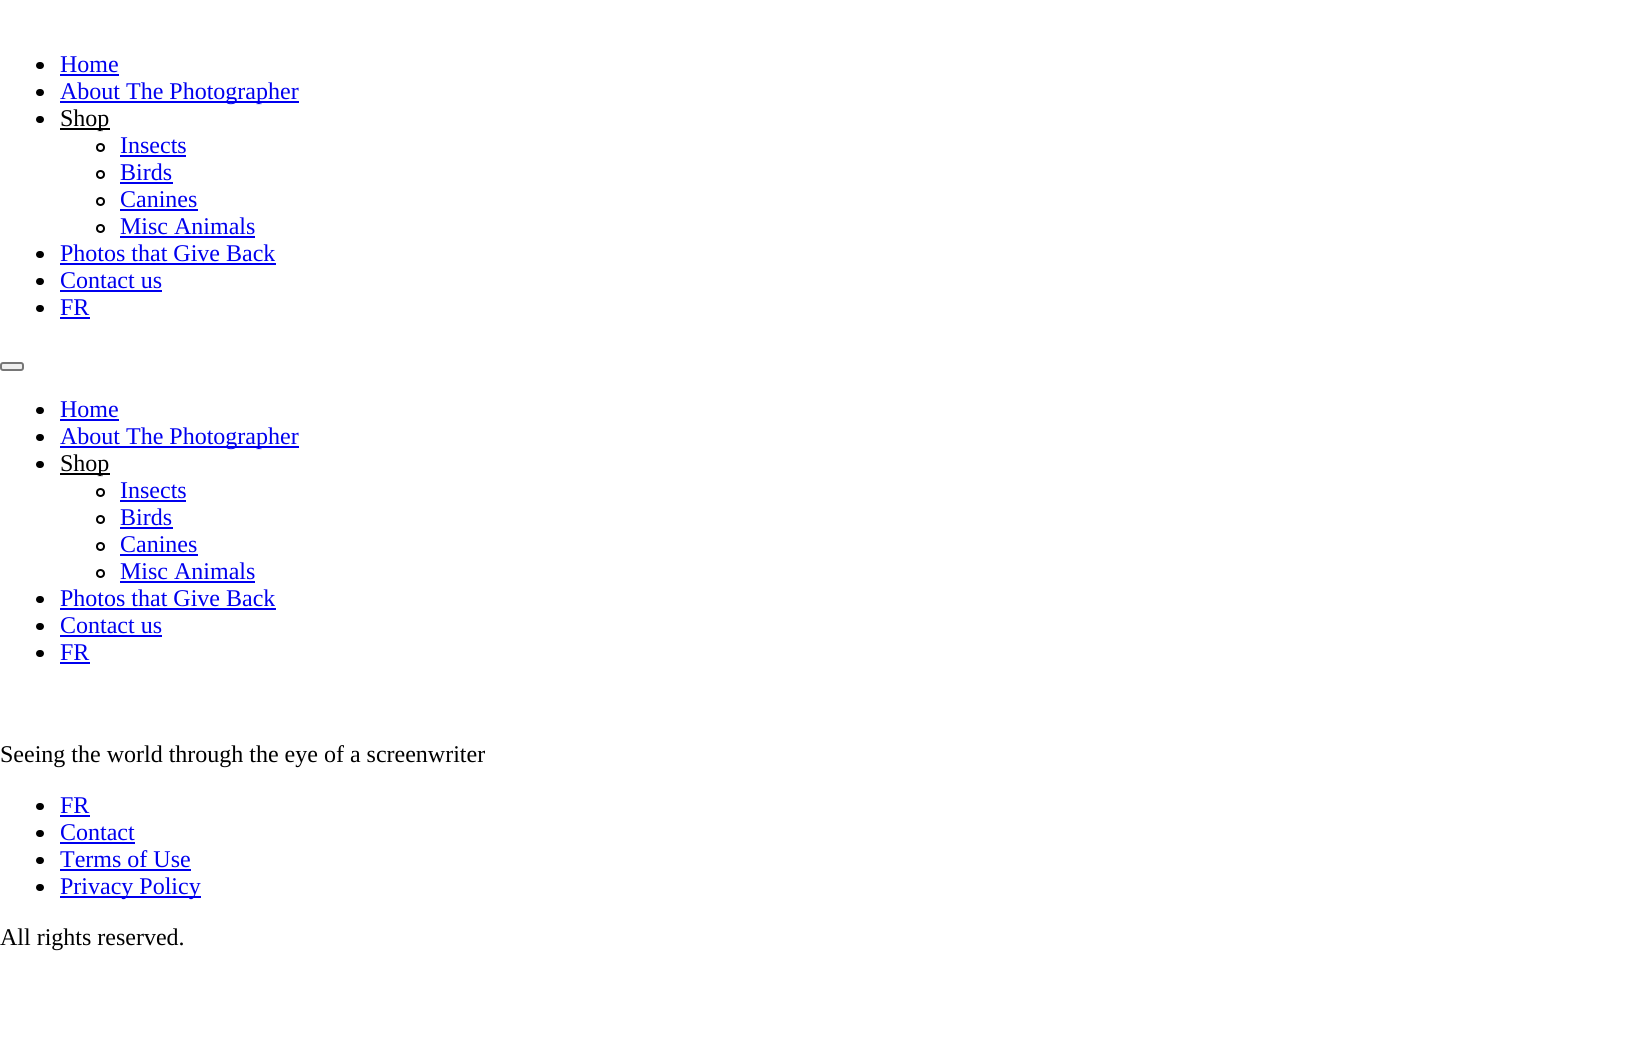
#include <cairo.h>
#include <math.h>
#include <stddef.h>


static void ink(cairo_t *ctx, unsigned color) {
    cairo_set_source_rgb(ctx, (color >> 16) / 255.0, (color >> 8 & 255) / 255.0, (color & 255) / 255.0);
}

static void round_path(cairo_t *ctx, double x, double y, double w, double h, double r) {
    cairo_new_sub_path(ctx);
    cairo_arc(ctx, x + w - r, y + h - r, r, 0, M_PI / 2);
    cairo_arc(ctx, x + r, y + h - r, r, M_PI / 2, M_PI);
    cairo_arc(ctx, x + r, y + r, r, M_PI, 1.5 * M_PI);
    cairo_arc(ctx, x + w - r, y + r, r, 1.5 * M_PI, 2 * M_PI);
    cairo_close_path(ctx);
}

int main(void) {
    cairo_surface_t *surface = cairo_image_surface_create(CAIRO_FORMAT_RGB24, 1645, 1049);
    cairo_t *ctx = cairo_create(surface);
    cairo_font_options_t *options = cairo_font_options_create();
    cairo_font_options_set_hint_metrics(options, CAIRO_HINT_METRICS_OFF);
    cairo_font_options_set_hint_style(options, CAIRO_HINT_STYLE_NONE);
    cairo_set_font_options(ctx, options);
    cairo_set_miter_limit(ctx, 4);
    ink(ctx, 0xFFFFFF);
    cairo_paint(ctx);
    ink(ctx, 0x000000);
    round_path(ctx, 36, 62, 8, 7, 3.5);
    cairo_fill(ctx);
    cairo_select_font_face(ctx, "Liberation Serif", CAIRO_FONT_SLANT_NORMAL, CAIRO_FONT_WEIGHT_NORMAL);
    cairo_set_font_size(ctx, 24);
    ink(ctx, 0x0000EE);
    cairo_move_to(ctx, 60, 72);
    cairo_show_text(ctx, "Home");
    cairo_rectangle(ctx, 60, 74, 59, 2);
    cairo_fill(ctx);
    ink(ctx, 0x000000);
    round_path(ctx, 36, 89, 8, 7, 3.5);
    cairo_fill(ctx);
    ink(ctx, 0x0000EE);
    cairo_rectangle(ctx, 60, 101, 239, 2);
    cairo_fill(ctx);
    cairo_move_to(ctx, 60, 99);
    cairo_show_text(ctx, "About The Photographer");
    ink(ctx, 0x000000);
    round_path(ctx, 36, 116, 8, 7, 3.5);
    cairo_fill(ctx);
    cairo_rectangle(ctx, 60, 128, 50, 2);
    cairo_fill(ctx);
    cairo_move_to(ctx, 60, 126);
    cairo_show_text(ctx, "Shop");
    cairo_new_path(ctx);
    cairo_arc(ctx, 100.5, 147.5, 3.5, 0, 2 * M_PI);
    cairo_stroke(ctx);
    ink(ctx, 0x0000EE);
    cairo_move_to(ctx, 120, 153);
    cairo_show_text(ctx, "Insects");
    cairo_rectangle(ctx, 120, 155, 66, 2);
    cairo_fill(ctx);
    cairo_arc(ctx, 100.5, 174.5, 3.5, 0, 2 * M_PI);
    ink(ctx, 0x000000);
    cairo_stroke(ctx);
    ink(ctx, 0x0000EE);
    cairo_move_to(ctx, 120, 180);
    cairo_show_text(ctx, "Birds");
    cairo_rectangle(ctx, 120, 182, 53, 2);
    cairo_fill(ctx);
    cairo_arc(ctx, 100.5, 201.5, 3.5, 0, 2 * M_PI);
    ink(ctx, 0x000000);
    cairo_stroke(ctx);
    ink(ctx, 0x0000EE);
    cairo_move_to(ctx, 120, 207);
    cairo_show_text(ctx, "Canines");
    cairo_rectangle(ctx, 120, 209, 78, 2);
    cairo_fill(ctx);
    cairo_arc(ctx, 100.5, 228.5, 3.5, 0, 2 * M_PI);
    ink(ctx, 0x000000);
    cairo_stroke(ctx);
    ink(ctx, 0x0000EE);
    cairo_move_to(ctx, 120, 234);
    cairo_show_text(ctx, "Misc Animals");
    cairo_rectangle(ctx, 120, 236, 135, 2);
    cairo_fill(ctx);
    ink(ctx, 0x000000);
    round_path(ctx, 36, 251, 8, 7, 3.5);
    cairo_fill(ctx);
    ink(ctx, 0x0000EE);
    cairo_move_to(ctx, 60, 261);
    cairo_show_text(ctx, "Photos that Give Back");
    cairo_rectangle(ctx, 60, 263, 216, 2);
    cairo_fill(ctx);
    ink(ctx, 0x000000);
    round_path(ctx, 36, 278, 8, 7, 3.5);
    cairo_fill(ctx);
    ink(ctx, 0x0000EE);
    cairo_move_to(ctx, 60, 288);
    cairo_show_text(ctx, "Contact us");
    cairo_rectangle(ctx, 60, 290, 102, 2);
    cairo_fill(ctx);
    ink(ctx, 0x000000);
    round_path(ctx, 36, 305, 8, 7, 3.5);
    cairo_fill(ctx);
    ink(ctx, 0x0000EE);
    cairo_move_to(ctx, 60, 315);
    cairo_show_text(ctx, "FR");
    cairo_rectangle(ctx, 60, 317, 30, 2);
    cairo_fill(ctx);
    ink(ctx, 0xEFEFEF);
    round_path(ctx, 1, 363, 22, 7, 2);
    cairo_fill_preserve(ctx);
    ink(ctx, 0x767676);
    cairo_stroke(ctx);
    ink(ctx, 0x000000);
    round_path(ctx, 36, 407, 8, 7, 3.5);
    cairo_fill(ctx);
    ink(ctx, 0x0000EE);
    cairo_move_to(ctx, 60, 417);
    cairo_show_text(ctx, "Home");
    cairo_rectangle(ctx, 60, 419, 59, 2);
    cairo_fill(ctx);
    ink(ctx, 0x000000);
    round_path(ctx, 36, 434, 8, 7, 3.5);
    cairo_fill(ctx);
    ink(ctx, 0x0000EE);
    cairo_rectangle(ctx, 60, 446, 239, 2);
    cairo_fill(ctx);
    cairo_move_to(ctx, 60, 444);
    cairo_show_text(ctx, "About The Photographer");
    ink(ctx, 0x000000);
    round_path(ctx, 36, 461, 8, 7, 3.5);
    cairo_fill(ctx);
    cairo_rectangle(ctx, 60, 473, 50, 2);
    cairo_fill(ctx);
    cairo_move_to(ctx, 60, 471);
    cairo_show_text(ctx, "Shop");
    cairo_new_path(ctx);
    cairo_arc(ctx, 100.5, 492.5, 3.5, 0, 2 * M_PI);
    cairo_stroke(ctx);
    ink(ctx, 0x0000EE);
    cairo_move_to(ctx, 120, 498);
    cairo_show_text(ctx, "Insects");
    cairo_rectangle(ctx, 120, 500, 66, 2);
    cairo_fill(ctx);
    cairo_arc(ctx, 100.5, 519.5, 3.5, 0, 2 * M_PI);
    ink(ctx, 0x000000);
    cairo_stroke(ctx);
    ink(ctx, 0x0000EE);
    cairo_move_to(ctx, 120, 525);
    cairo_show_text(ctx, "Birds");
    cairo_rectangle(ctx, 120, 527, 53, 2);
    cairo_fill(ctx);
    cairo_arc(ctx, 100.5, 546.5, 3.5, 0, 2 * M_PI);
    ink(ctx, 0x000000);
    cairo_stroke(ctx);
    ink(ctx, 0x0000EE);
    cairo_move_to(ctx, 120, 552);
    cairo_show_text(ctx, "Canines");
    cairo_rectangle(ctx, 120, 554, 78, 2);
    cairo_fill(ctx);
    cairo_arc(ctx, 100.5, 573.5, 3.5, 0, 2 * M_PI);
    ink(ctx, 0x000000);
    cairo_stroke(ctx);
    ink(ctx, 0x0000EE);
    cairo_move_to(ctx, 120, 579);
    cairo_show_text(ctx, "Misc Animals");
    cairo_rectangle(ctx, 120, 581, 135, 2);
    cairo_fill(ctx);
    ink(ctx, 0x000000);
    round_path(ctx, 36, 596, 8, 7, 3.5);
    cairo_fill(ctx);
    ink(ctx, 0x0000EE);
    cairo_move_to(ctx, 60, 606);
    cairo_show_text(ctx, "Photos that Give Back");
    cairo_rectangle(ctx, 60, 608, 216, 2);
    cairo_fill(ctx);
    ink(ctx, 0x000000);
    round_path(ctx, 36, 623, 8, 7, 3.5);
    cairo_fill(ctx);
    ink(ctx, 0x0000EE);
    cairo_move_to(ctx, 60, 633);
    cairo_show_text(ctx, "Contact us");
    cairo_rectangle(ctx, 60, 635, 102, 2);
    cairo_fill(ctx);
    ink(ctx, 0x000000);
    round_path(ctx, 36, 650, 8, 7, 3.5);
    cairo_fill(ctx);
    ink(ctx, 0x0000EE);
    cairo_move_to(ctx, 60, 660);
    cairo_show_text(ctx, "FR");
    cairo_rectangle(ctx, 60, 662, 30, 2);
    cairo_fill(ctx);
    ink(ctx, 0x000000);
    cairo_move_to(ctx, 0, 762);
    cairo_show_text(ctx, "Seeing the world through the eye of a screenwriter");
    round_path(ctx, 36, 803, 8, 7, 3.5);
    cairo_fill(ctx);
    ink(ctx, 0x0000EE);
    cairo_move_to(ctx, 60, 813);
    cairo_show_text(ctx, "FR");
    cairo_rectangle(ctx, 60, 815, 30, 2);
    cairo_fill(ctx);
    ink(ctx, 0x000000);
    round_path(ctx, 36, 830, 8, 7, 3.5);
    cairo_fill(ctx);
    ink(ctx, 0x0000EE);
    cairo_move_to(ctx, 60, 840);
    cairo_show_text(ctx, "Contact");
    cairo_rectangle(ctx, 60, 842, 75, 2);
    cairo_fill(ctx);
    ink(ctx, 0x000000);
    round_path(ctx, 36, 857, 8, 7, 3.5);
    cairo_fill(ctx);
    ink(ctx, 0x0000EE);
    cairo_move_to(ctx, 60, 867);
    cairo_show_text(ctx, "Terms of Use");
    cairo_rectangle(ctx, 60, 869, 131, 2);
    cairo_fill(ctx);
    ink(ctx, 0x000000);
    round_path(ctx, 36, 884, 8, 7, 3.5);
    cairo_fill(ctx);
    ink(ctx, 0x0000EE);
    cairo_rectangle(ctx, 60, 896, 141, 2);
    cairo_fill(ctx);
    cairo_move_to(ctx, 60, 894);
    cairo_show_text(ctx, "Privacy Policy");
    ink(ctx, 0x000000);
    cairo_move_to(ctx, 0, 945);
    cairo_show_text(ctx, "All rights reserved.");
    cairo_surface_write_to_png(surface, "image.png");
    cairo_font_options_destroy(options);
    cairo_destroy(ctx);
    cairo_surface_destroy(surface);
    return 0;
}
